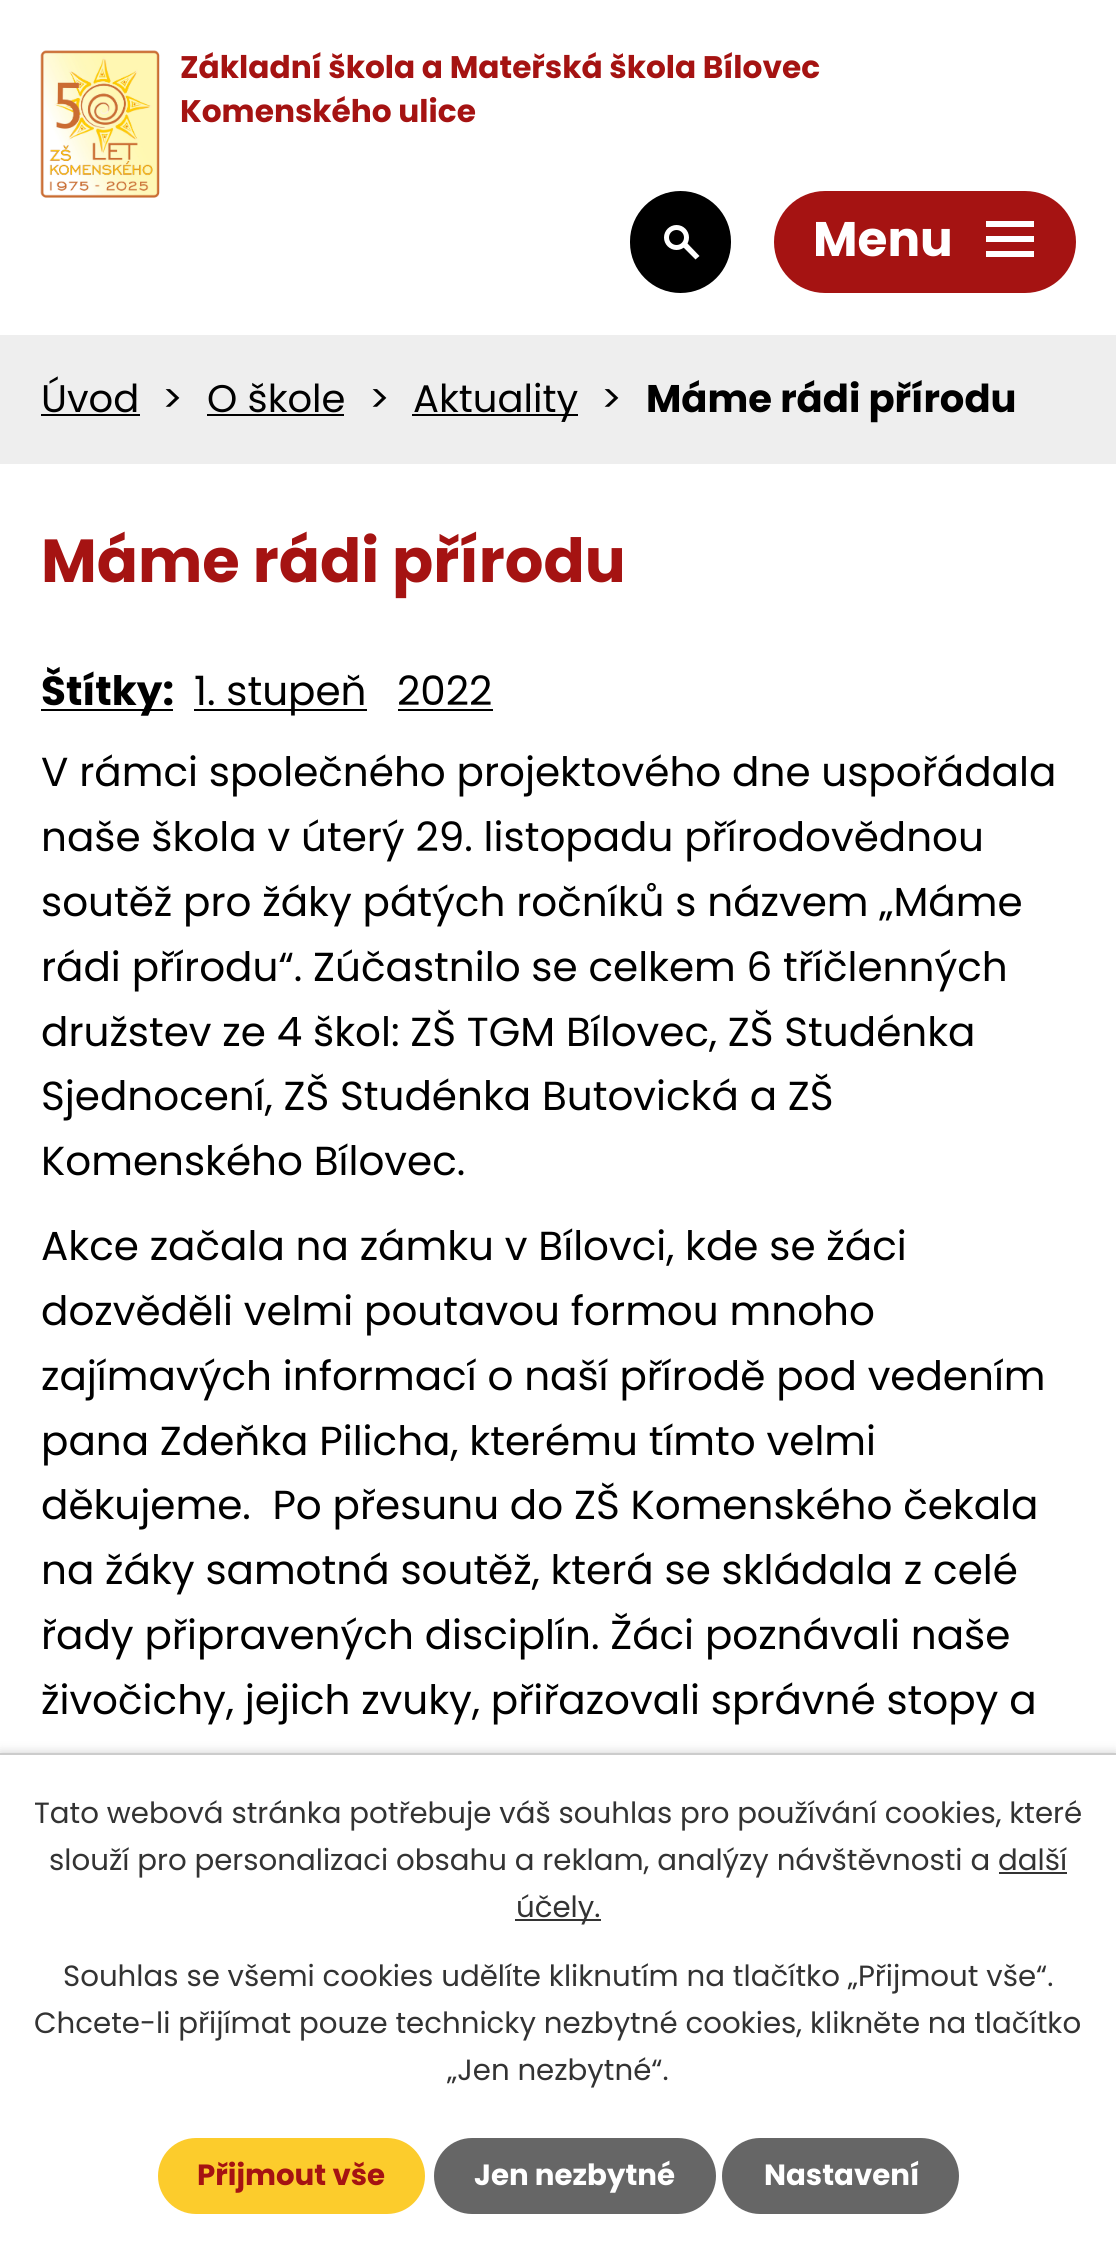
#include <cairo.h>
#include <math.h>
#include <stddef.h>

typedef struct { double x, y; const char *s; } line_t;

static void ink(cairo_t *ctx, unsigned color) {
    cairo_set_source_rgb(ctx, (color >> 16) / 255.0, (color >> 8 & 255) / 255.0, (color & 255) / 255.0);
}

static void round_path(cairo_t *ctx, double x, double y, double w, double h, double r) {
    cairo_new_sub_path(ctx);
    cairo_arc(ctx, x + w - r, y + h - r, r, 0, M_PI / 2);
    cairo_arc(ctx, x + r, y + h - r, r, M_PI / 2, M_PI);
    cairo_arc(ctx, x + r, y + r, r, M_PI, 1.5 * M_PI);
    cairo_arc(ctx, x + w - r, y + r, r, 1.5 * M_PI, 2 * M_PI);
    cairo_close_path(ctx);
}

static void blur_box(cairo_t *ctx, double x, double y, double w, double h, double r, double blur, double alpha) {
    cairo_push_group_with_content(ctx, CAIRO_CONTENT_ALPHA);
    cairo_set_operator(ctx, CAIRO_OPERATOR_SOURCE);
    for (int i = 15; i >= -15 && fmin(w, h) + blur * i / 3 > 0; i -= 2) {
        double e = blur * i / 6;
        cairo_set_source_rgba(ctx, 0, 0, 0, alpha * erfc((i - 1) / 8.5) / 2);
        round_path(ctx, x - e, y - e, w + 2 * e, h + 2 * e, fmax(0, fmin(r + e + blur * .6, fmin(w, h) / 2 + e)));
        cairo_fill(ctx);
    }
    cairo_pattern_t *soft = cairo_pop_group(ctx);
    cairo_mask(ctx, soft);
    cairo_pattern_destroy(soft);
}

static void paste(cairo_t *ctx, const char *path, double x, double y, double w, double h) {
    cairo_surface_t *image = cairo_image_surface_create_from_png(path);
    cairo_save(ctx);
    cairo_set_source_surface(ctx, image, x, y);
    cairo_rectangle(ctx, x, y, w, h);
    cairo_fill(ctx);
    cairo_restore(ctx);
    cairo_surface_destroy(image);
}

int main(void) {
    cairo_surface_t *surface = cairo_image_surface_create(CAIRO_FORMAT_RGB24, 1116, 2246);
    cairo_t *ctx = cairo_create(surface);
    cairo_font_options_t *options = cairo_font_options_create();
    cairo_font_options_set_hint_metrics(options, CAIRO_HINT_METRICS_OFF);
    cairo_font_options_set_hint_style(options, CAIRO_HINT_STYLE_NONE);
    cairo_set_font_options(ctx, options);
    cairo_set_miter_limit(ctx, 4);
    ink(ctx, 0xFFFFFF);
    cairo_paint(ctx);
    paste(ctx, "media/1.png", 40, 50, 120, 148);
    cairo_select_font_face(ctx, "Poppins", CAIRO_FONT_SLANT_NORMAL, CAIRO_FONT_WEIGHT_BOLD);
    cairo_set_font_size(ctx, 31.2);
    ink(ctx, 0xA51312);
    cairo_move_to(ctx, 180, 78);
    cairo_show_text(ctx, "Základní škola a Mateřská škola Bílovec");
    cairo_move_to(ctx, 180, 122);
    cairo_show_text(ctx, "Komenského ulice");
    ink(ctx, 0x000000);
    round_path(ctx, 631, 192, 99, 100, 49.5);
    cairo_fill_preserve(ctx);
    cairo_stroke(ctx);
    cairo_arc(ctx, 676.5, 237.5, 10, 0, 2 * M_PI);
    ink(ctx, 0xFFFFFF);
    cairo_set_line_width(ctx, 5);
    cairo_stroke(ctx);
    cairo_new_path(ctx);
    cairo_move_to(ctx, 686.5, 242.5);
    cairo_line_to(ctx, 699.5, 256);
    cairo_line_to(ctx, 695.5, 259.5);
    cairo_line_to(ctx, 682.5, 246.5);
    cairo_close_path(ctx);
    cairo_fill(ctx);
    ink(ctx, 0xA51312);
    round_path(ctx, 774, 191, 302, 102, 51);
    cairo_fill(ctx);
    cairo_set_font_size(ctx, 48.5);
    ink(ctx, 0xFFFFFF);
    cairo_move_to(ctx, 813, 256);
    cairo_show_text(ctx, "Menu");
    cairo_new_path(ctx);
    cairo_move_to(ctx, 986, 257);
    cairo_line_to(ctx, 986, 251);
    cairo_line_to(ctx, 1034, 251);
    cairo_line_to(ctx, 1034, 257);
    cairo_close_path(ctx);
    cairo_move_to(ctx, 986, 221);
    cairo_line_to(ctx, 1034, 221);
    cairo_line_to(ctx, 1034, 227);
    cairo_line_to(ctx, 986, 227);
    cairo_close_path(ctx);
    cairo_move_to(ctx, 986, 242);
    cairo_line_to(ctx, 986, 236);
    cairo_line_to(ctx, 1034, 236);
    cairo_line_to(ctx, 1034, 242);
    cairo_close_path(ctx);
    cairo_fill(ctx);
    ink(ctx, 0xEEEEEE);
    cairo_rectangle(ctx, 0, 335, 1116, 129);
    cairo_fill(ctx);
    cairo_select_font_face(ctx, "Poppins", CAIRO_FONT_SLANT_NORMAL, CAIRO_FONT_WEIGHT_NORMAL);
    cairo_set_font_size(ctx, 38.5);
    ink(ctx, 0x000000);
    cairo_move_to(ctx, 41, 412);
    cairo_show_text(ctx, "Úvod");
    cairo_rectangle(ctx, 41, 414, 99, 2);
    cairo_fill(ctx);
    cairo_move_to(ctx, 162, 412);
    cairo_show_text(ctx, ">");
    cairo_move_to(ctx, 207, 412);
    cairo_show_text(ctx, "O škole");
    cairo_rectangle(ctx, 207, 414, 137, 2);
    cairo_fill(ctx);
    cairo_move_to(ctx, 369, 412);
    cairo_show_text(ctx, ">");
    cairo_rectangle(ctx, 412, 414, 166, 2);
    cairo_fill(ctx);
    cairo_move_to(ctx, 413, 412);
    cairo_show_text(ctx, "Aktuality");
    cairo_move_to(ctx, 601, 412);
    cairo_show_text(ctx, ">");
    cairo_select_font_face(ctx, "Poppins", CAIRO_FONT_SLANT_NORMAL, CAIRO_FONT_WEIGHT_BOLD);
    cairo_move_to(ctx, 646, 412);
    cairo_show_text(ctx, "Máme rádi přírodu");
    cairo_set_font_size(ctx, 60.75);
    ink(ctx, 0xA51312);
    cairo_move_to(ctx, 41, 582);
    cairo_show_text(ctx, "Máme rádi přírodu");
    ink(ctx, 0x000000);
    cairo_rectangle(ctx, 41, 709, 132, 2);
    cairo_fill(ctx);
    cairo_set_font_size(ctx, 40.5);
    cairo_move_to(ctx, 41, 705);
    cairo_show_text(ctx, "Štítky:");
    cairo_rectangle(ctx, 194, 709, 173, 2);
    cairo_fill(ctx);
    cairo_select_font_face(ctx, "Poppins", CAIRO_FONT_SLANT_NORMAL, CAIRO_FONT_WEIGHT_NORMAL);
    cairo_move_to(ctx, 194, 705);
    cairo_show_text(ctx, "1. stupeň");
    cairo_move_to(ctx, 397, 705);
    cairo_show_text(ctx, "2022");
    cairo_rectangle(ctx, 398, 709, 95, 2);
    cairo_fill(ctx);
    {
        static const line_t items[] = {
            {41, 786, "V rámci společného projektového dne uspořádala"},
            {41, 851, "naše škola v úterý 29. listopadu přírodovědnou"},
            {41, 916, "soutěž pro žáky pátých ročníků s názvem „Máme"},
            {41, 981, "rádi přírodu“. Zúčastnilo se celkem 6 tříčlenných"},
            {41, 1046, "družstev ze 4 škol: ZŠ TGM Bílovec, ZŠ Studénka"},
            {41, 1110, "Sjednocení, ZŠ Studénka Butovická a ZŠ"},
            {41, 1175, "Komenského Bílovec."},
            {41, 1260, "Akce začala na zámku v Bílovci, kde se žáci"},
            {41, 1325, "dozvěděli velmi poutavou formou mnoho"},
            {41, 1390, "zajímavých informací o naší přírodě pod vedením"},
            {41, 1455, "pana Zdeňka Pilicha, kterému tímto velmi"},
            {41, 1519, "děkujeme.  Po přesunu do ZŠ Komenského čekala"},
            {41, 1584, "na žáky samotná soutěž, která se skládala z celé"},
            {41, 1649, "řady připravených disciplín. Žáci poznávali naše"},
            {41, 1714, "živočichy, jejich zvuky, přiřazovali správné stopy a"},
        };
        for (size_t i = 0; i < sizeof items / sizeof *items; i++) {
            cairo_move_to(ctx, items[i].x, items[i].y);
            cairo_show_text(ctx, items[i].s);
        }
    }
    ink(ctx, 0x000000);
    blur_box(ctx, 0, 1753, 1116, 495, 0, 5.5, 0.2);
    ink(ctx, 0xFFFFFF);
    cairo_rectangle(ctx, 0, 1755, 1116, 491);
    cairo_fill(ctx);
    ink(ctx, 0xCCCCCC);
    cairo_rectangle(ctx, 0, 1753, 1116, 2);
    cairo_fill(ctx);
    cairo_set_font_size(ctx, 29.25);
    ink(ctx, 0x333333);
    cairo_move_to(ctx, 34, 1823);
    cairo_show_text(ctx, "Tato webová stránka potřebuje váš souhlas pro používání cookies, které");
    cairo_move_to(ctx, 49, 1870);
    cairo_show_text(ctx, "slouží pro personalizaci obsahu a reklam, analýzy návštěvnosti a další");
    cairo_rectangle(ctx, 515, 1919, 86, 2);
    cairo_fill(ctx);
    cairo_move_to(ctx, 516, 1917);
    cairo_show_text(ctx, "účely.");
    cairo_rectangle(ctx, 999, 1872, 68, 2);
    cairo_fill(ctx);
    {
        static const line_t items[] = {
            {63, 1986, "Souhlas se všemi cookies udělíte kliknutím na tlačítko „Přijmout vše“."},
            {34, 2033, "Chcete-li přijímat pouze technicky nezbytné cookies, klikněte na tlačítko"},
            {447, 2080, "„Jen nezbytné“."},
        };
        for (size_t i = 0; i < sizeof items / sizeof *items; i++) {
            cairo_move_to(ctx, items[i].x, items[i].y);
            cairo_show_text(ctx, items[i].s);
        }
    }
    ink(ctx, 0xFCCC2C);
    round_path(ctx, 158, 2138, 267, 76, 38);
    cairo_fill(ctx);
    cairo_select_font_face(ctx, "Poppins", CAIRO_FONT_SLANT_NORMAL, CAIRO_FONT_WEIGHT_BOLD);
    ink(ctx, 0xA51312);
    cairo_move_to(ctx, 197, 2185);
    cairo_show_text(ctx, "Přijmout vše");
    ink(ctx, 0x666666);
    round_path(ctx, 434, 2138, 282, 76, 38);
    cairo_fill(ctx);
    ink(ctx, 0xFFFFFF);
    cairo_move_to(ctx, 474, 2185);
    cairo_show_text(ctx, "Jen nezbytné");
    ink(ctx, 0x666666);
    round_path(ctx, 722, 2138, 237, 76, 38);
    cairo_fill(ctx);
    ink(ctx, 0xFFFFFF);
    cairo_move_to(ctx, 764, 2185);
    cairo_show_text(ctx, "Nastavení");
    cairo_surface_write_to_png(surface, "image.png");
    cairo_font_options_destroy(options);
    cairo_destroy(ctx);
    cairo_surface_destroy(surface);
    return 0;
}
